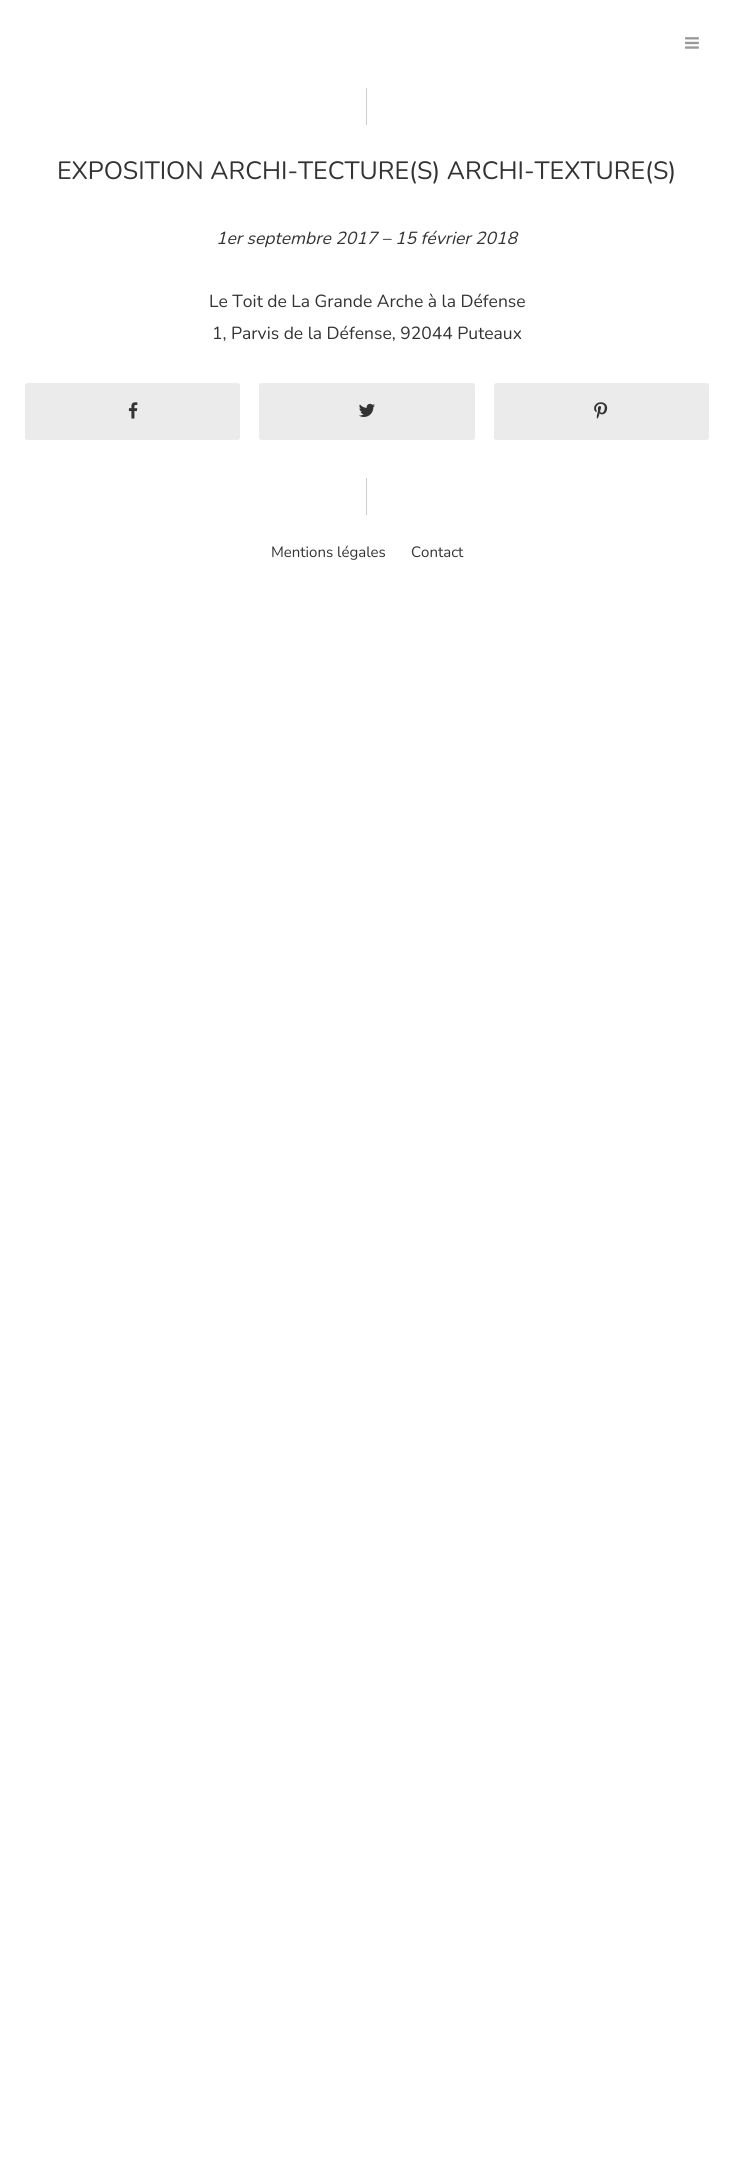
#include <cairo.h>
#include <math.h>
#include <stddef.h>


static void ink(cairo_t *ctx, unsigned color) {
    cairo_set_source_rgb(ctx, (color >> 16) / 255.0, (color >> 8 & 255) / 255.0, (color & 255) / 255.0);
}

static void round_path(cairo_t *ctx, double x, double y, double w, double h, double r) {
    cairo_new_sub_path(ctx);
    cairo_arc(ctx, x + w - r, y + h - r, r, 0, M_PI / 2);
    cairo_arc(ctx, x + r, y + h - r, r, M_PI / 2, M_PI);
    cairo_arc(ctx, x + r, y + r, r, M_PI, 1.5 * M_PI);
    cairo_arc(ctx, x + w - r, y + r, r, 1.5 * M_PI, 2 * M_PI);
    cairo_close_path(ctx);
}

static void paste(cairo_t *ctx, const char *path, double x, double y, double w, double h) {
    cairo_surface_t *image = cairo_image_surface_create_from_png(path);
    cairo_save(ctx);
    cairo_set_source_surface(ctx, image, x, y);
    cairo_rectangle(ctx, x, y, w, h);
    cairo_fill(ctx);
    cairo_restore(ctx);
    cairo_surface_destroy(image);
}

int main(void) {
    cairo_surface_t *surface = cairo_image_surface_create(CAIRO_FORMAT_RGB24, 733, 2163);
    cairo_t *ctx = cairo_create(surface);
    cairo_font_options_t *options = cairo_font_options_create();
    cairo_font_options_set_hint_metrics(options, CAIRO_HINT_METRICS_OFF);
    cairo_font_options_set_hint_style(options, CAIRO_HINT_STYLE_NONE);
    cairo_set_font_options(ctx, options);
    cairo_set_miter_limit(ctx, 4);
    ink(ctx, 0xFFFFFF);
    cairo_paint(ctx);
    paste(ctx, "media/1.png", 685, 37, 14, 12);
    ink(ctx, 0xCCCCCC);
    cairo_rectangle(ctx, 366, 88, 1, 37);
    cairo_fill(ctx);
    cairo_select_font_face(ctx, "Nunito ExtraLight", CAIRO_FONT_SLANT_NORMAL, CAIRO_FONT_WEIGHT_NORMAL);
    cairo_set_font_size(ctx, 25);
    ink(ctx, 0x333333);
    cairo_move_to(ctx, 57, 179);
    cairo_show_text(ctx, "EXPOSITION ARCHI-TECTURE(S) ARCHI-TEXTURE(S)");
    cairo_select_font_face(ctx, "Nunito ExtraLight", CAIRO_FONT_SLANT_ITALIC, CAIRO_FONT_WEIGHT_NORMAL);
    cairo_set_font_size(ctx, 17.5);
    cairo_move_to(ctx, 216, 244);
    cairo_show_text(ctx, "1er septembre 2017 – 15 février 2018");
    cairo_select_font_face(ctx, "Nunito ExtraLight", CAIRO_FONT_SLANT_NORMAL, CAIRO_FONT_WEIGHT_NORMAL);
    cairo_move_to(ctx, 209, 307);
    cairo_show_text(ctx, "Le Toit de La Grande Arche à la Défense");
    cairo_move_to(ctx, 212, 339);
    cairo_show_text(ctx, "1, Parvis de la Défense, 92044 Puteaux");
    ink(ctx, 0xEBEBEB);
    round_path(ctx, 25, 383, 215, 57, 2.5);
    cairo_fill(ctx);
    paste(ctx, "media/2.png", 128, 402, 10, 17);
    round_path(ctx, 259, 383, 216, 57, 2.5);
    cairo_fill(ctx);
    paste(ctx, "media/3.png", 359, 403, 16, 14);
    round_path(ctx, 494, 383, 215, 57, 2.5);
    cairo_fill(ctx);
    paste(ctx, "media/4.png", 594, 402, 14, 17);
    ink(ctx, 0xCCCCCC);
    cairo_rectangle(ctx, 366, 478, 1, 37);
    cairo_fill(ctx);
    cairo_set_font_size(ctx, 15);
    ink(ctx, 0x333333);
    cairo_move_to(ctx, 271, 557);
    cairo_show_text(ctx, "Mentions légales");
    cairo_move_to(ctx, 411, 557);
    cairo_show_text(ctx, "Contact");
    cairo_surface_write_to_png(surface, "image.png");
    cairo_font_options_destroy(options);
    cairo_destroy(ctx);
    cairo_surface_destroy(surface);
    return 0;
}
